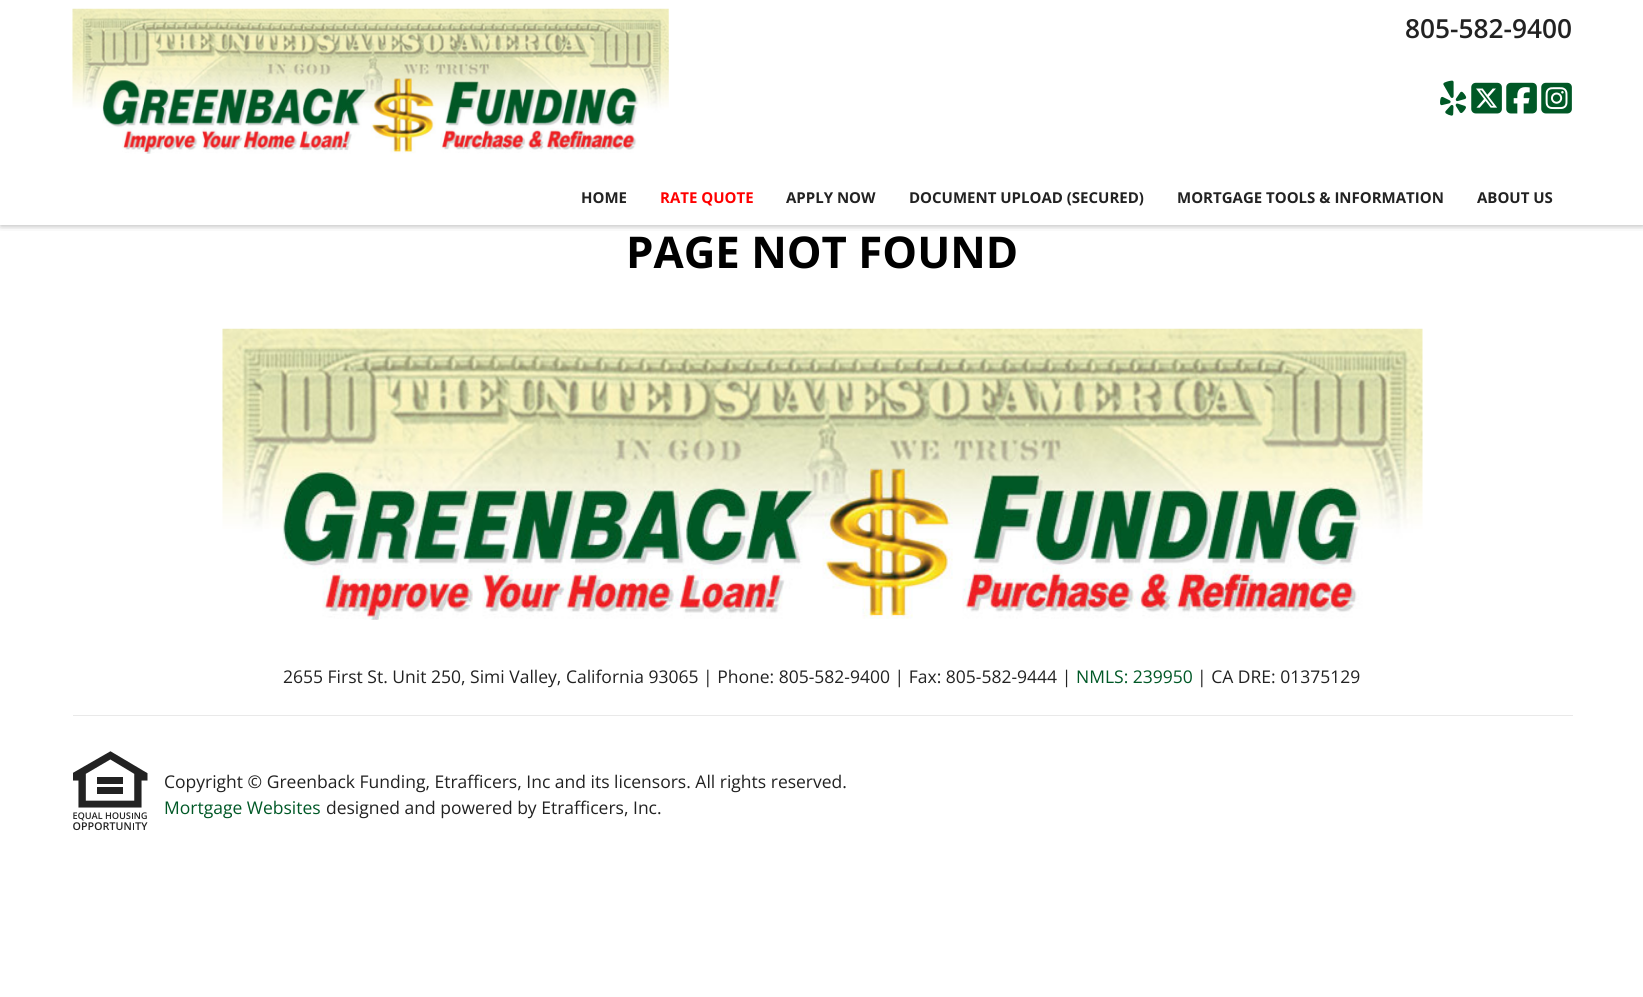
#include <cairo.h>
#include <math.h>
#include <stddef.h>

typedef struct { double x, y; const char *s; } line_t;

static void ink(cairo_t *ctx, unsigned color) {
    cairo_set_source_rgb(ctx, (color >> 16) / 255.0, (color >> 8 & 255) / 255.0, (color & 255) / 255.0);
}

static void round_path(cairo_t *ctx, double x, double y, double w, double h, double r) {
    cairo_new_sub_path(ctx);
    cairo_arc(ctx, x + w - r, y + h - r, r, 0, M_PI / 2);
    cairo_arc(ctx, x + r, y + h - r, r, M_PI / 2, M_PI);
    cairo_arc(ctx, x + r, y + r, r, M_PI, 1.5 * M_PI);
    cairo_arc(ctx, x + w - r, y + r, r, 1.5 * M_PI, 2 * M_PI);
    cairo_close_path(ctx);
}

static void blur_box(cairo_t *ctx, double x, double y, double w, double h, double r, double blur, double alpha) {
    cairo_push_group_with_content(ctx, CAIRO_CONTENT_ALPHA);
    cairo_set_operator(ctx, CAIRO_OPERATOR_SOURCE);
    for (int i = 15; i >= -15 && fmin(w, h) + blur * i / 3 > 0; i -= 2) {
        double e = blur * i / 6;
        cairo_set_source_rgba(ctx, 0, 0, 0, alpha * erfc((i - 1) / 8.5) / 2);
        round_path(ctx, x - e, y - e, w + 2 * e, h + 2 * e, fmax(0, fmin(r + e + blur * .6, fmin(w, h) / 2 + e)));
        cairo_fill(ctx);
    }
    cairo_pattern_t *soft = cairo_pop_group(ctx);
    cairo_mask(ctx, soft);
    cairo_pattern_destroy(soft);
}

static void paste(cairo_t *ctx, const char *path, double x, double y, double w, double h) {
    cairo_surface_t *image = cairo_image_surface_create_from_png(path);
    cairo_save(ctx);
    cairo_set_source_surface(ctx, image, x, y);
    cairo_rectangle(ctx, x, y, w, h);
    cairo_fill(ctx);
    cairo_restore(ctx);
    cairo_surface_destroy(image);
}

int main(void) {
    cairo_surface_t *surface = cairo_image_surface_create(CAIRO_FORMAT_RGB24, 1643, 997);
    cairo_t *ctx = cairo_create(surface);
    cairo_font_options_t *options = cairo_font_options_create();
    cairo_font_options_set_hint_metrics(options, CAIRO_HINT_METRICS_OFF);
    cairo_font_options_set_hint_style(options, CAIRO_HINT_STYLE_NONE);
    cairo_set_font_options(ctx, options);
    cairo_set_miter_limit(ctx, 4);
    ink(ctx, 0xFFFFFF);
    cairo_paint(ctx);
    cairo_save(ctx);
    cairo_rectangle(ctx, 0, 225, 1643, 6);
    cairo_clip(ctx);
    ink(ctx, 0x000000);
    blur_box(ctx, 0, 1, 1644, 225, 0, 6, 0.1);
    cairo_restore(ctx);
    cairo_save(ctx);
    cairo_rectangle(ctx, 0, 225, 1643, 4);
    cairo_clip(ctx);
    ink(ctx, 0x000000);
    blur_box(ctx, 1, 4, 1642, 222, 0, 2.5, 0.2);
    cairo_restore(ctx);
    paste(ctx, "media/1.png", 72, 8, 597, 146);
    cairo_select_font_face(ctx, "Open Sans SemiBold", CAIRO_FONT_SLANT_NORMAL, CAIRO_FONT_WEIGHT_NORMAL);
    cairo_set_font_size(ctx, 26.25);
    ink(ctx, 0x222222);
    cairo_move_to(ctx, 1405, 38);
    cairo_show_text(ctx, "805-582-9400");
    paste(ctx, "media/2.png", 1440, 80, 27, 36);
    paste(ctx, "media/3.png", 1471, 82, 31, 32);
    paste(ctx, "media/4.png", 1506, 82, 31, 32);
    paste(ctx, "media/5.png", 1541, 82, 31, 32);
    cairo_select_font_face(ctx, "Open Sans", CAIRO_FONT_SLANT_NORMAL, CAIRO_FONT_WEIGHT_BOLD);
    cairo_set_font_size(ctx, 15);
    cairo_move_to(ctx, 581, 203);
    cairo_show_text(ctx, "HOME");
    ink(ctx, 0xFF0000);
    cairo_move_to(ctx, 660, 203);
    cairo_show_text(ctx, "RATE QUOTE");
    ink(ctx, 0x222222);
    {
        static const line_t items[] = {
            {786, 203, "APPLY NOW"},
            {909, 203, "DOCUMENT UPLOAD (SECURED)"},
            {1177, 203, "MORTGAGE TOOLS & INFORMATION"},
            {1477, 203, "ABOUT US"},
        };
        for (size_t i = 0; i < sizeof items / sizeof *items; i++) {
            cairo_move_to(ctx, items[i].x, items[i].y);
            cairo_show_text(ctx, items[i].s);
        }
    }
    cairo_set_font_size(ctx, 43.75);
    ink(ctx, 0x000000);
    cairo_move_to(ctx, 626, 268);
    cairo_show_text(ctx, "PAGE NOT FOUND");
    paste(ctx, "media/6.png", 222, 328, 1201, 292);
    cairo_select_font_face(ctx, "Open Sans", CAIRO_FONT_SLANT_NORMAL, CAIRO_FONT_WEIGHT_NORMAL);
    cairo_set_font_size(ctx, 17.5);
    ink(ctx, 0x222222);
    cairo_move_to(ctx, 283, 683);
    cairo_show_text(ctx, "2655 First St. Unit 250, Simi Valley, California 93065 | Phone: 805-582-9400 | Fax: 805-582-9444 |");
    ink(ctx, 0x005826);
    cairo_move_to(ctx, 1076, 683);
    cairo_show_text(ctx, "NMLS: 239950");
    ink(ctx, 0x222222);
    cairo_move_to(ctx, 1197, 683);
    cairo_show_text(ctx, "| CA DRE: 01375129");
    ink(ctx, 0xE9E9E9);
    cairo_rectangle(ctx, 73, 715, 1500, 1);
    cairo_fill(ctx);
    paste(ctx, "media/7.png", 73, 751, 75, 80);
    ink(ctx, 0x222222);
    cairo_move_to(ctx, 164, 788);
    cairo_show_text(ctx, "Copyright © Greenback Funding, Etrafficers, Inc and its licensors. All rights reserved.");
    ink(ctx, 0x005826);
    cairo_move_to(ctx, 164, 814);
    cairo_show_text(ctx, "Mortgage Websites");
    ink(ctx, 0x222222);
    cairo_move_to(ctx, 326, 814);
    cairo_show_text(ctx, "designed and powered by Etrafficers, Inc.");
    cairo_surface_write_to_png(surface, "image.png");
    cairo_font_options_destroy(options);
    cairo_destroy(ctx);
    cairo_surface_destroy(surface);
    return 0;
}
